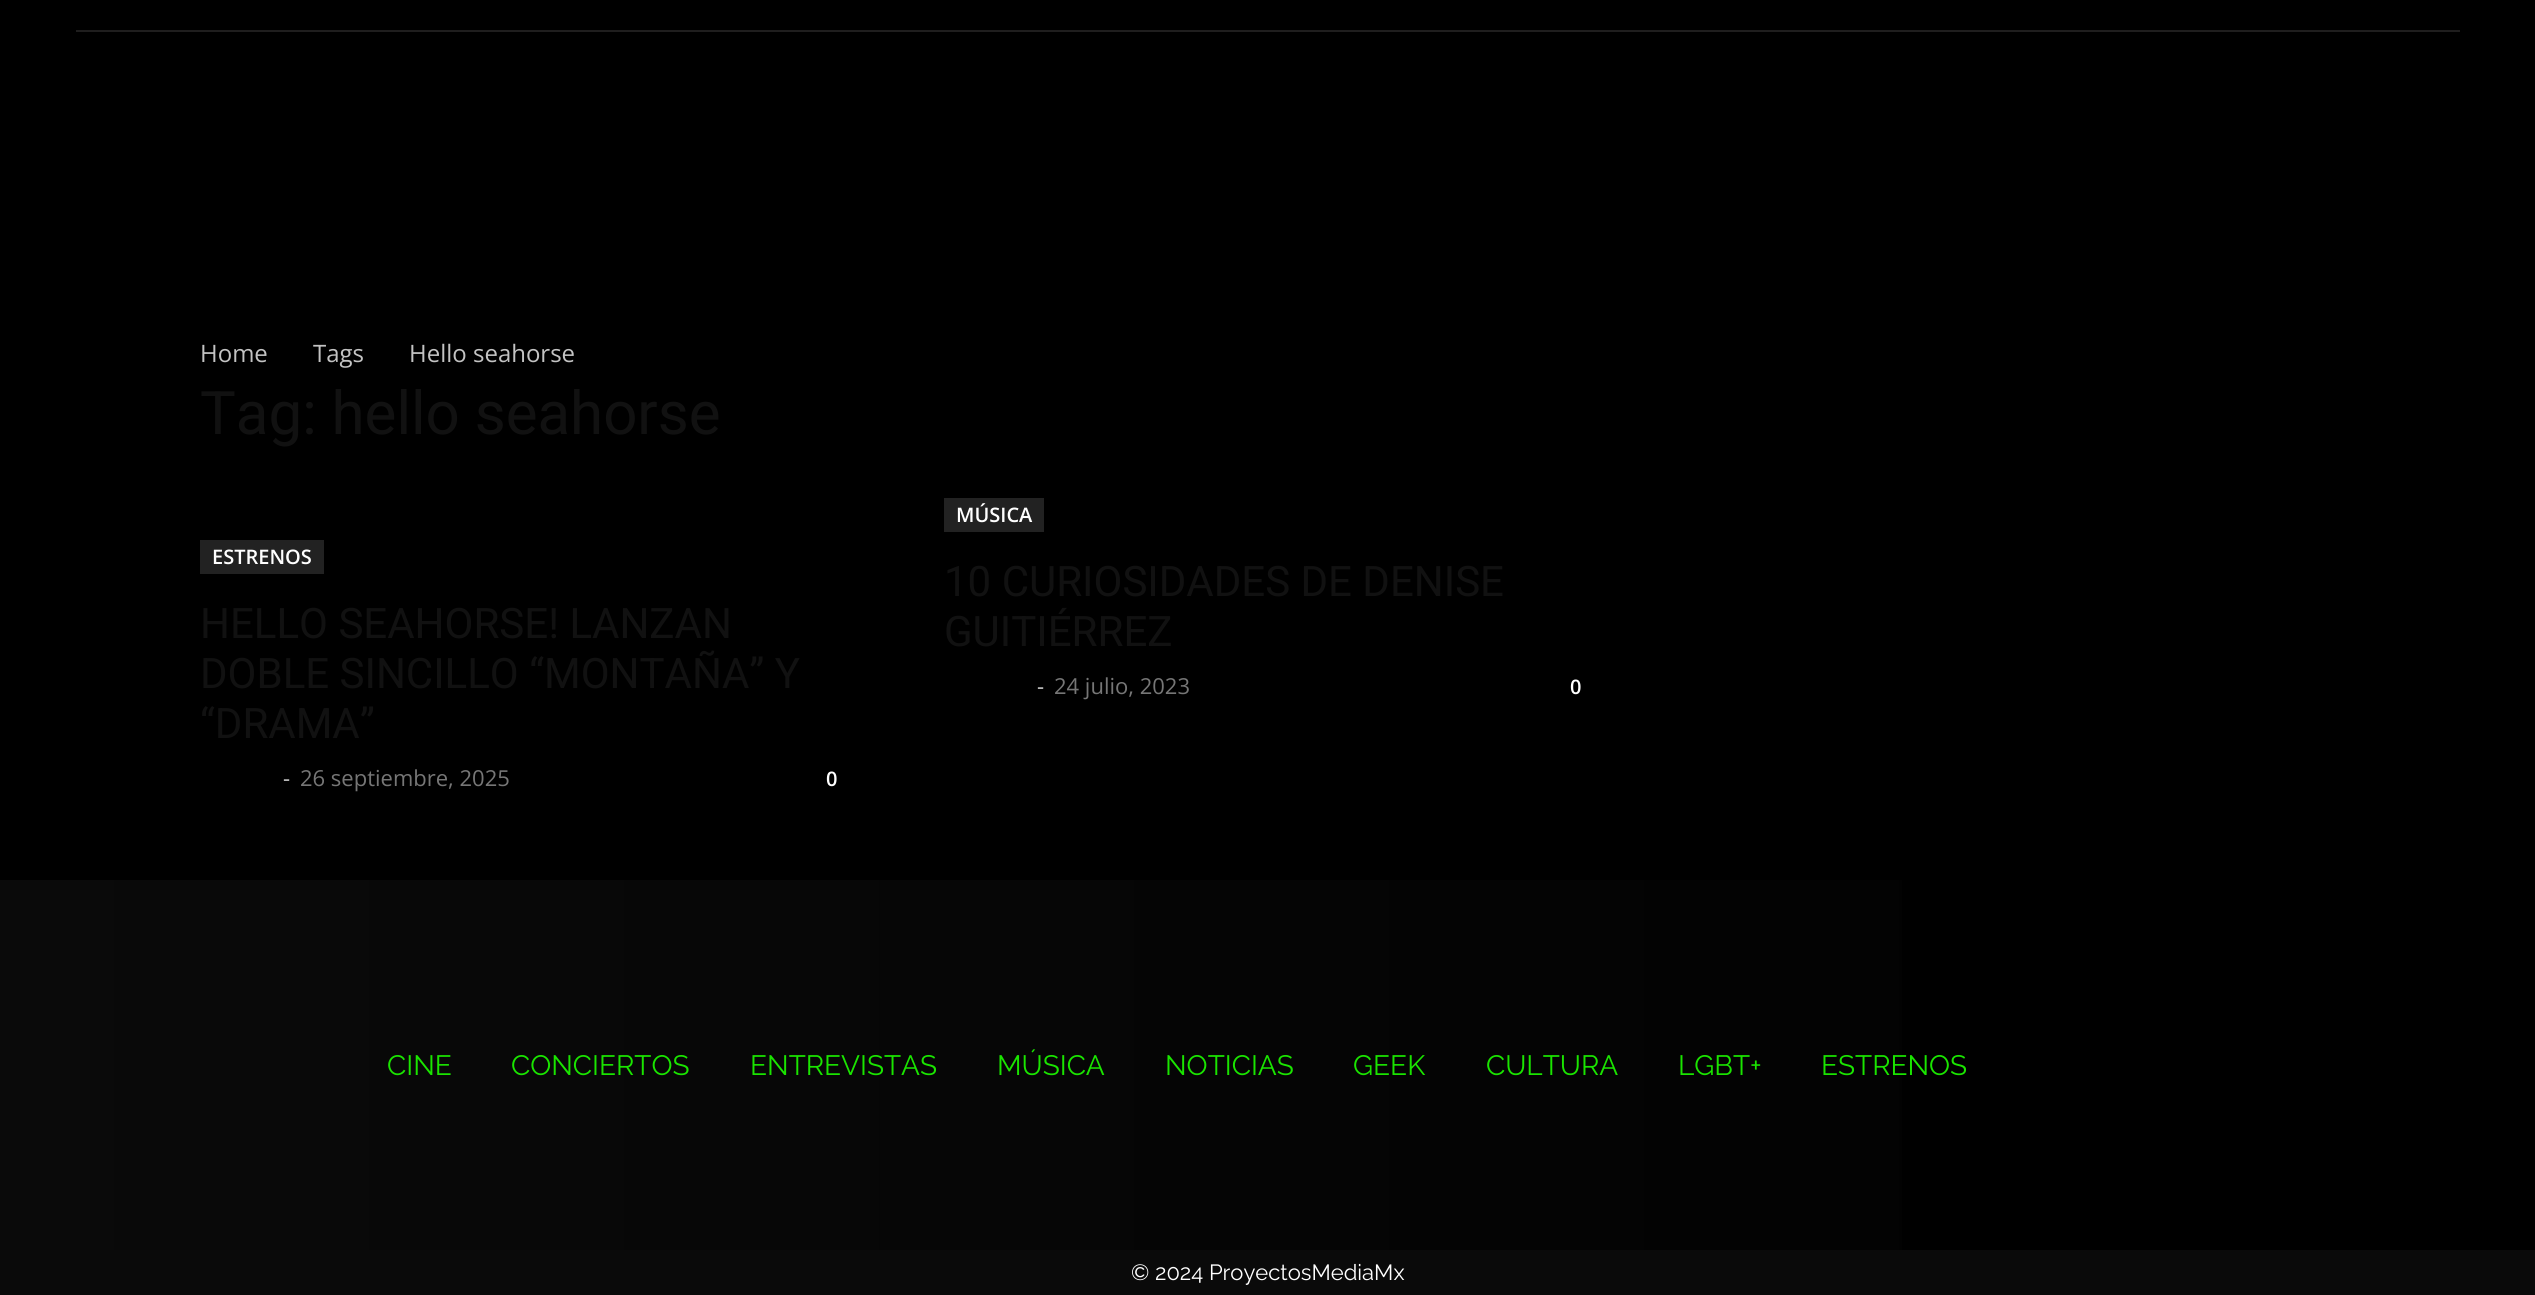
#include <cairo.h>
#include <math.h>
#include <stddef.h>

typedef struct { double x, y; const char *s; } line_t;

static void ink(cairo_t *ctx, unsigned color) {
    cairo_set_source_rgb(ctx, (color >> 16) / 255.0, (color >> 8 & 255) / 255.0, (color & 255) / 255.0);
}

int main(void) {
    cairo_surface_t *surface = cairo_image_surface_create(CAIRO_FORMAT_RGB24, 2535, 1295);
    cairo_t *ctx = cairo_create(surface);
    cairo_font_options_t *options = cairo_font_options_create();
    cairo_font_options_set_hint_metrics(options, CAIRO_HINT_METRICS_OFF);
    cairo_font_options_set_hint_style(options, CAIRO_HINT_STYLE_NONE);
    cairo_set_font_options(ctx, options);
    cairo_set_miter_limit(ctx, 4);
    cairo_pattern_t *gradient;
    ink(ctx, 0x000000);
    cairo_paint(ctx);
    ink(ctx, 0x1F1E1E);
    cairo_rectangle(ctx, 76, 30, 2384, 2);
    cairo_fill(ctx);
    cairo_select_font_face(ctx, "Open Sans", CAIRO_FONT_SLANT_NORMAL, CAIRO_FONT_WEIGHT_NORMAL);
    cairo_set_font_size(ctx, 24);
    ink(ctx, 0xC3C3C3);
    {
        static const line_t items[] = {
            {200, 362, "Home"},
            {313, 362, "Tags"},
            {409, 362, "Hello seahorse"},
        };
        for (size_t i = 0; i < sizeof items / sizeof *items; i++) {
            cairo_move_to(ctx, items[i].x, items[i].y);
            cairo_show_text(ctx, items[i].s);
        }
    }
    cairo_select_font_face(ctx, "Roboto", CAIRO_FONT_SLANT_NORMAL, CAIRO_FONT_WEIGHT_NORMAL);
    cairo_set_font_size(ctx, 60);
    ink(ctx, 0x111111);
    cairo_move_to(ctx, 200, 434);
    cairo_show_text(ctx, "Tag: hello seahorse");
    ink(ctx, 0x222222);
    cairo_rectangle(ctx, 200, 540, 124, 34);
    cairo_fill(ctx);
    cairo_select_font_face(ctx, "Open Sans SemiBold", CAIRO_FONT_SLANT_NORMAL, CAIRO_FONT_WEIGHT_NORMAL);
    cairo_set_font_size(ctx, 20);
    ink(ctx, 0xFFFFFF);
    cairo_move_to(ctx, 212, 564);
    cairo_show_text(ctx, "ESTRENOS");
    cairo_select_font_face(ctx, "Roboto", CAIRO_FONT_SLANT_NORMAL, CAIRO_FONT_WEIGHT_NORMAL);
    cairo_set_font_size(ctx, 42);
    ink(ctx, 0x111111);
    {
        static const line_t items[] = {
            {200, 638, "HELLO SEAHORSE! LANZAN"},
            {200, 688, "DOBLE SINCILLO “MONTAÑA” Y"},
            {200, 738, "“DRAMA”"},
        };
        for (size_t i = 0; i < sizeof items / sizeof *items; i++) {
            cairo_move_to(ctx, items[i].x, items[i].y);
            cairo_show_text(ctx, items[i].s);
        }
    }
    cairo_select_font_face(ctx, "Open Sans", CAIRO_FONT_SLANT_NORMAL, CAIRO_FONT_WEIGHT_NORMAL);
    cairo_set_font_size(ctx, 22);
    ink(ctx, 0xCCCCCC);
    cairo_move_to(ctx, 283, 786);
    cairo_show_text(ctx, "-");
    ink(ctx, 0x767676);
    cairo_move_to(ctx, 300, 786);
    cairo_show_text(ctx, "26 septiembre, 2025");
    cairo_select_font_face(ctx, "Open Sans SemiBold", CAIRO_FONT_SLANT_NORMAL, CAIRO_FONT_WEIGHT_NORMAL);
    cairo_set_font_size(ctx, 20);
    ink(ctx, 0xFFFFFF);
    cairo_move_to(ctx, 826, 786);
    cairo_show_text(ctx, "0");
    ink(ctx, 0x222222);
    cairo_rectangle(ctx, 944, 498, 100, 34);
    cairo_fill(ctx);
    ink(ctx, 0xFFFFFF);
    cairo_move_to(ctx, 956, 522);
    cairo_show_text(ctx, "MÚSICA");
    cairo_select_font_face(ctx, "Roboto", CAIRO_FONT_SLANT_NORMAL, CAIRO_FONT_WEIGHT_NORMAL);
    cairo_set_font_size(ctx, 42);
    ink(ctx, 0x111111);
    cairo_move_to(ctx, 944, 596);
    cairo_show_text(ctx, "10 CURIOSIDADES DE DENISE");
    cairo_move_to(ctx, 944, 646);
    cairo_show_text(ctx, "GUITIÉRREZ");
    cairo_select_font_face(ctx, "Open Sans", CAIRO_FONT_SLANT_NORMAL, CAIRO_FONT_WEIGHT_NORMAL);
    cairo_set_font_size(ctx, 22);
    ink(ctx, 0xCCCCCC);
    cairo_move_to(ctx, 1037, 694);
    cairo_show_text(ctx, "-");
    ink(ctx, 0x767676);
    cairo_move_to(ctx, 1054, 694);
    cairo_show_text(ctx, "24 julio, 2023");
    cairo_select_font_face(ctx, "Open Sans SemiBold", CAIRO_FONT_SLANT_NORMAL, CAIRO_FONT_WEIGHT_NORMAL);
    cairo_set_font_size(ctx, 20);
    ink(ctx, 0xFFFFFF);
    cairo_move_to(ctx, 1570, 694);
    cairo_show_text(ctx, "0");
    gradient = cairo_pattern_create_linear(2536, 1065, 0, 1065);
    cairo_pattern_add_color_stop_rgba(gradient, 0, 0, 0, 0, 1);
    cairo_pattern_add_color_stop_rgba(gradient, 1, 0.039, 0.039, 0.039, 1);
    cairo_set_source(ctx, gradient);
    cairo_pattern_destroy(gradient);
    cairo_rectangle(ctx, 0, 880, 1902, 370);
    cairo_fill(ctx);
    cairo_select_font_face(ctx, "Raleway Thin", CAIRO_FONT_SLANT_NORMAL, CAIRO_FONT_WEIGHT_NORMAL);
    cairo_set_font_size(ctx, 28);
    ink(ctx, 0x1AE500);
    {
        static const line_t items[] = {
            {387, 1075, "CINE"},
            {511, 1075, "CONCIERTOS"},
            {750, 1075, "ENTREVISTAS"},
            {997, 1075, "MÚSICA"},
            {1165, 1075, "NOTICIAS"},
            {1353, 1075, "GEEK"},
            {1486, 1075, "CULTURA"},
            {1678, 1075, "LGBT+"},
            {1821, 1075, "ESTRENOS"},
        };
        for (size_t i = 0; i < sizeof items / sizeof *items; i++) {
            cairo_move_to(ctx, items[i].x, items[i].y);
            cairo_show_text(ctx, items[i].s);
        }
    }
    ink(ctx, 0x0A0A0A);
    cairo_rectangle(ctx, 0, 1250, 2535, 45);
    cairo_fill(ctx);
    cairo_set_font_size(ctx, 22);
    ink(ctx, 0xFFFFFF);
    cairo_move_to(ctx, 1131, 1280);
    cairo_show_text(ctx, "© 2024 ProyectosMediaMx");
    cairo_surface_write_to_png(surface, "image.png");
    cairo_font_options_destroy(options);
    cairo_destroy(ctx);
    cairo_surface_destroy(surface);
    return 0;
}
